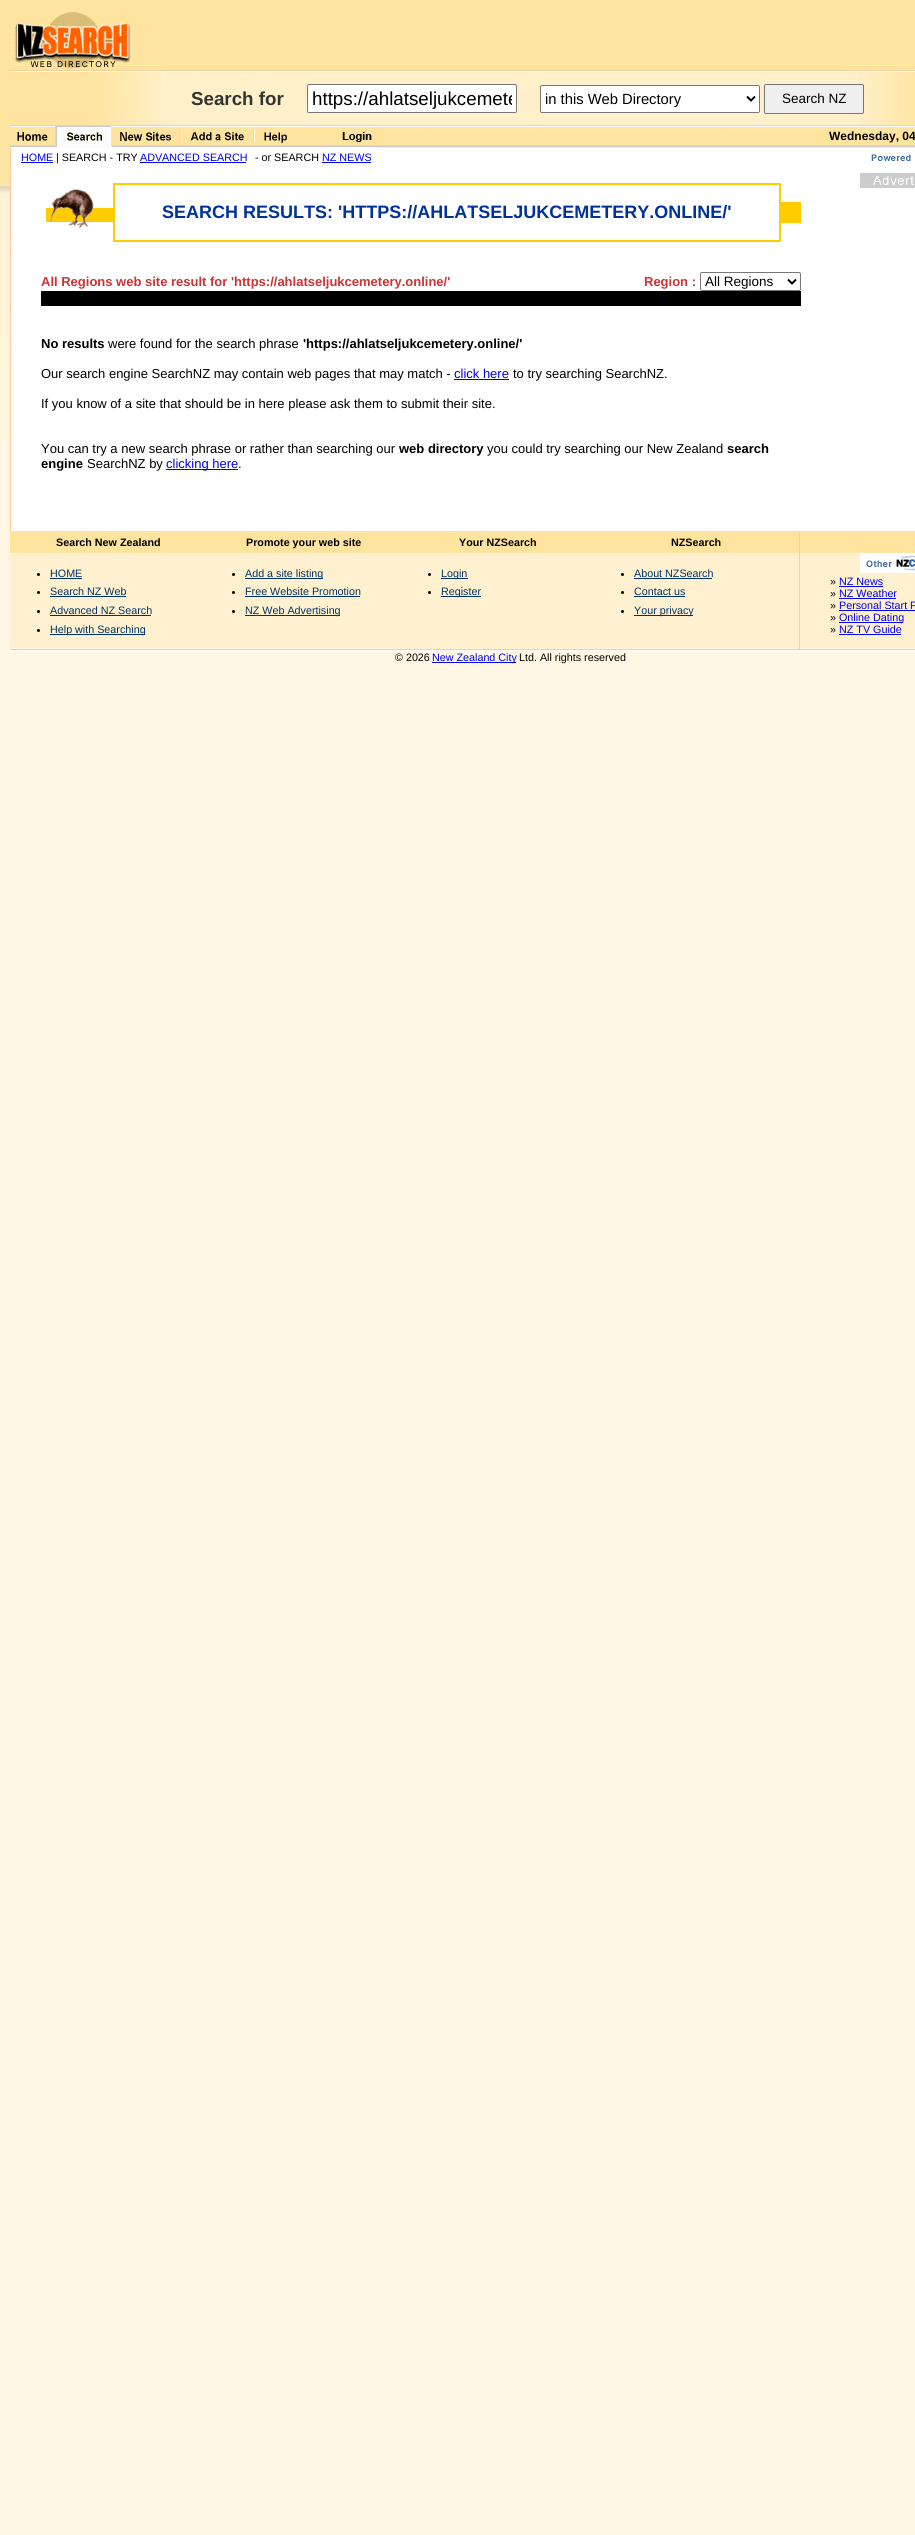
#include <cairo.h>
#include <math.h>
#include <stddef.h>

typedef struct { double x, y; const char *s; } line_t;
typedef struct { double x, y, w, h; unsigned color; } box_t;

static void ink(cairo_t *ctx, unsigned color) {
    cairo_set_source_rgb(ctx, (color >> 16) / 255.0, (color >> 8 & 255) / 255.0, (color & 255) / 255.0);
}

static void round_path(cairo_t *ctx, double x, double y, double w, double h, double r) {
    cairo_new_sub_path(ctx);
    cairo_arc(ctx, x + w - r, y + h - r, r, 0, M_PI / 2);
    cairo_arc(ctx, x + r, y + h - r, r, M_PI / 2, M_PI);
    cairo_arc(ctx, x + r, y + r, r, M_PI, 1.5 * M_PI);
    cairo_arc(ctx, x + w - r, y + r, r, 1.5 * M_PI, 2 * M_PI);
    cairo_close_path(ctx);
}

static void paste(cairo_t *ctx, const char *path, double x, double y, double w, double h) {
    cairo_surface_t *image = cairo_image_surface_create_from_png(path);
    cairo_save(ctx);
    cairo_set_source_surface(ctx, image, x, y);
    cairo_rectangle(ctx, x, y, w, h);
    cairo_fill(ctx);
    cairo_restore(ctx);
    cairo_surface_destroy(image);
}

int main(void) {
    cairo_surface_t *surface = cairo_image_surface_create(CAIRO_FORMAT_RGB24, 915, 2535);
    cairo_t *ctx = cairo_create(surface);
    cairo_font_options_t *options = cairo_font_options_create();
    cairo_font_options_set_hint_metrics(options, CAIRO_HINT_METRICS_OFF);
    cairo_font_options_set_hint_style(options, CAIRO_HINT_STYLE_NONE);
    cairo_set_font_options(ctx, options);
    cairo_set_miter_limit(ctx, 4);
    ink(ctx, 0xFFF7E3);
    cairo_paint(ctx);
    paste(ctx, "media/1.png", 0, 0, 915, 441);
    paste(ctx, "media/2.png", 14, 12, 117, 56);
    {
        static const box_t items[] = {
            {10, 70, 905, 1, 0xFFCC99},
            {10, 71, 905, 1, 0xFFFFFF},
            {161, 72, 698, 53, 0xFFF0C9},
        };
        for (size_t i = 0; i < sizeof items / sizeof *items; i++) {
            ink(ctx, items[i].color);
            cairo_rectangle(ctx, items[i].x, items[i].y, items[i].w, items[i].h);
            cairo_fill(ctx);
        }
    }
    paste(ctx, "media/3.png", 10, 72, 151, 53);
    cairo_select_font_face(ctx, "Liberation Sans", CAIRO_FONT_SLANT_NORMAL, CAIRO_FONT_WEIGHT_BOLD);
    cairo_set_font_size(ctx, 18.75);
    ink(ctx, 0x333333);
    cairo_move_to(ctx, 191, 105);
    cairo_show_text(ctx, "Search for");
    ink(ctx, 0xFFFFFF);
    round_path(ctx, 307.5, 84.5, 209, 28, 1.5);
    cairo_fill_preserve(ctx);
    ink(ctx, 0x767676);
    cairo_set_line_width(ctx, 1);
    cairo_stroke(ctx);
    cairo_save(ctx);
    cairo_rectangle(ctx, 312, 88, 200, 22);
    cairo_clip(ctx);
    cairo_select_font_face(ctx, "Liberation Sans", CAIRO_FONT_SLANT_NORMAL, CAIRO_FONT_WEIGHT_NORMAL);
    ink(ctx, 0x000000);
    cairo_move_to(ctx, 312, 105);
    cairo_show_text(ctx, "https://ahlatseljukcemete");
    cairo_restore(ctx);
    ink(ctx, 0xFFFFFF);
    round_path(ctx, 540.5, 85.5, 219, 27, 1.5);
    cairo_fill_preserve(ctx);
    ink(ctx, 0x767676);
    cairo_stroke(ctx);
    cairo_new_path(ctx);
    cairo_move_to(ctx, 747, 96.5);
    cairo_line_to(ctx, 751, 100.5);
    cairo_line_to(ctx, 755, 96.5);
    ink(ctx, 0x000000);
    cairo_set_line_width(ctx, 2);
    cairo_stroke(ctx);
    cairo_select_font_face(ctx, "Liberation Sans", CAIRO_FONT_SLANT_NORMAL, CAIRO_FONT_WEIGHT_NORMAL);
    cairo_set_font_size(ctx, 14.75);
    cairo_move_to(ctx, 545, 104);
    cairo_show_text(ctx, "in this Web Directory");
    paste(ctx, "media/4.png", 859, 72, 56, 53);
    ink(ctx, 0xEFEFEF);
    round_path(ctx, 764.5, 84.5, 99, 29, 1.5);
    cairo_fill_preserve(ctx);
    ink(ctx, 0x767676);
    cairo_set_line_width(ctx, 1);
    cairo_stroke(ctx);
    cairo_set_font_size(ctx, 13.5);
    ink(ctx, 0x000000);
    cairo_move_to(ctx, 782, 103);
    cairo_show_text(ctx, "Search NZ");
    ink(ctx, 0xFFE4A0);
    cairo_rectangle(ctx, 377, 133, 538, 12);
    cairo_fill(ctx);
    ink(ctx, 0xFFCC99);
    cairo_rectangle(ctx, 10, 125, 905, 1);
    cairo_fill(ctx);
    paste(ctx, "media/5.png", 10, 126, 367, 22);
    ink(ctx, 0xFFFFFF);
    cairo_rectangle(ctx, 377, 126, 538, 1);
    cairo_fill(ctx);
    cairo_select_font_face(ctx, "Liberation Sans", CAIRO_FONT_SLANT_NORMAL, CAIRO_FONT_WEIGHT_BOLD);
    cairo_set_font_size(ctx, 12);
    ink(ctx, 0x000000);
    cairo_move_to(ctx, 829, 140);
    cairo_show_text(ctx, "Wednesday, 04");
    {
        static const box_t items[] = {
            {377, 145, 538, 1, 0xFFCC99},
            {377, 146, 538, 1, 0xCCCCCC},
            {377, 147, 538, 1, 0xEEEEEE},
            {11, 148, 904, 383, 0xFFFFFF},
            {10, 148, 1, 383, 0xFFCC99},
        };
        for (size_t i = 0; i < sizeof items / sizeof *items; i++) {
            ink(ctx, items[i].color);
            cairo_rectangle(ctx, items[i].x, items[i].y, items[i].w, items[i].h);
            cairo_fill(ctx);
        }
    }
    cairo_select_font_face(ctx, "Liberation Sans", CAIRO_FONT_SLANT_NORMAL, CAIRO_FONT_WEIGHT_NORMAL);
    cairo_set_font_size(ctx, 10.75);
    ink(ctx, 0x0000EE);
    cairo_move_to(ctx, 21, 161);
    cairo_show_text(ctx, "HOME");
    cairo_rectangle(ctx, 21, 162, 32, 1);
    cairo_fill(ctx);
    ink(ctx, 0x000000);
    cairo_move_to(ctx, 56, 161);
    cairo_show_text(ctx, "| SEARCH - TRY");
    ink(ctx, 0x0000EE);
    cairo_move_to(ctx, 140, 161);
    cairo_show_text(ctx, "ADVANCED SEARCH");
    cairo_rectangle(ctx, 140, 162, 106, 1);
    cairo_fill(ctx);
    ink(ctx, 0x000000);
    cairo_move_to(ctx, 255, 161);
    cairo_show_text(ctx, "- or SEARCH");
    ink(ctx, 0x0000EE);
    cairo_move_to(ctx, 322, 161);
    cairo_show_text(ctx, "NZ NEWS");
    cairo_rectangle(ctx, 322, 162, 49, 1);
    cairo_fill(ctx);
    paste(ctx, "media/6.png", 46, 189, 67, 40);
    ink(ctx, 0xFFCC00);
    cairo_rectangle(ctx, 113, 183, 668, 59);
    cairo_fill(ctx);
    ink(ctx, 0xFFFFFF);
    cairo_rectangle(ctx, 115, 185, 664, 55);
    cairo_fill(ctx);
    cairo_select_font_face(ctx, "Liberation Sans", CAIRO_FONT_SLANT_NORMAL, CAIRO_FONT_WEIGHT_BOLD);
    cairo_set_font_size(ctx, 18);
    ink(ctx, 0x003399);
    cairo_move_to(ctx, 162, 218);
    cairo_show_text(ctx, "SEARCH RESULTS: 'HTTPS://AHLATSELJUKCEMETERY.ONLINE/'");
    ink(ctx, 0xFFCC00);
    cairo_rectangle(ctx, 781, 202, 20, 21);
    cairo_fill(ctx);
    cairo_set_font_size(ctx, 13);
    ink(ctx, 0xCC3333);
    cairo_move_to(ctx, 41, 286);
    cairo_show_text(ctx, "All Regions web site result for 'https://ahlatseljukcemetery.online/'");
    cairo_move_to(ctx, 644, 286);
    cairo_show_text(ctx, "Region :");
    round_path(ctx, 700.5, 272.5, 100, 18, 1.5);
    ink(ctx, 0x767676);
    cairo_stroke(ctx);
    cairo_new_path(ctx);
    cairo_move_to(ctx, 788, 279.5);
    cairo_line_to(ctx, 792, 283.5);
    cairo_line_to(ctx, 796, 279.5);
    ink(ctx, 0x000000);
    cairo_set_line_width(ctx, 2);
    cairo_stroke(ctx);
    cairo_select_font_face(ctx, "Liberation Sans", CAIRO_FONT_SLANT_NORMAL, CAIRO_FONT_WEIGHT_NORMAL);
    cairo_set_font_size(ctx, 13.5);
    cairo_move_to(ctx, 705, 286);
    cairo_show_text(ctx, "All Regions");
    cairo_rectangle(ctx, 41, 291, 760, 15);
    cairo_fill(ctx);
    cairo_select_font_face(ctx, "Liberation Sans", CAIRO_FONT_SLANT_NORMAL, CAIRO_FONT_WEIGHT_BOLD);
    cairo_set_font_size(ctx, 13);
    cairo_move_to(ctx, 41, 348);
    cairo_show_text(ctx, "No results");
    cairo_select_font_face(ctx, "Liberation Sans", CAIRO_FONT_SLANT_NORMAL, CAIRO_FONT_WEIGHT_NORMAL);
    cairo_move_to(ctx, 108, 348);
    cairo_show_text(ctx, "were found for the search phrase");
    cairo_select_font_face(ctx, "Liberation Sans", CAIRO_FONT_SLANT_NORMAL, CAIRO_FONT_WEIGHT_BOLD);
    cairo_move_to(ctx, 303, 348);
    cairo_show_text(ctx, "'https://ahlatseljukcemetery.online/'");
    cairo_select_font_face(ctx, "Liberation Sans", CAIRO_FONT_SLANT_NORMAL, CAIRO_FONT_WEIGHT_NORMAL);
    cairo_move_to(ctx, 41, 378);
    cairo_show_text(ctx, "Our search engine SearchNZ may contain web pages that may match -");
    ink(ctx, 0x0000EE);
    cairo_move_to(ctx, 454, 378);
    cairo_show_text(ctx, "click here");
    cairo_rectangle(ctx, 454, 379, 55, 1);
    cairo_fill(ctx);
    ink(ctx, 0x000000);
    {
        static const line_t items[] = {
            {513, 378, "to try searching SearchNZ."},
            {41, 408, "If you know of a site that should be in here please ask them to submit their site."},
            {41, 453, "You can try a new search phrase or rather than searching our"},
        };
        for (size_t i = 0; i < sizeof items / sizeof *items; i++) {
            cairo_move_to(ctx, items[i].x, items[i].y);
            cairo_show_text(ctx, items[i].s);
        }
    }
    cairo_select_font_face(ctx, "Liberation Sans", CAIRO_FONT_SLANT_NORMAL, CAIRO_FONT_WEIGHT_BOLD);
    cairo_move_to(ctx, 399, 453);
    cairo_show_text(ctx, "web directory");
    cairo_select_font_face(ctx, "Liberation Sans", CAIRO_FONT_SLANT_NORMAL, CAIRO_FONT_WEIGHT_NORMAL);
    cairo_move_to(ctx, 487, 453);
    cairo_show_text(ctx, "you could try searching our New Zealand");
    cairo_select_font_face(ctx, "Liberation Sans", CAIRO_FONT_SLANT_NORMAL, CAIRO_FONT_WEIGHT_BOLD);
    cairo_move_to(ctx, 727, 453);
    cairo_show_text(ctx, "search");
    cairo_move_to(ctx, 41, 468);
    cairo_show_text(ctx, "engine");
    cairo_select_font_face(ctx, "Liberation Sans", CAIRO_FONT_SLANT_NORMAL, CAIRO_FONT_WEIGHT_NORMAL);
    cairo_move_to(ctx, 87, 468);
    cairo_show_text(ctx, "SearchNZ by");
    ink(ctx, 0x0000EE);
    cairo_rectangle(ctx, 166, 469, 72, 1);
    cairo_fill(ctx);
    cairo_move_to(ctx, 166, 468);
    cairo_show_text(ctx, "clicking here");
    ink(ctx, 0x000000);
    cairo_move_to(ctx, 238, 468);
    cairo_show_text(ctx, ".");
    paste(ctx, "media/7.png", 871, 154, 40, 7);
    paste(ctx, "media/8.png", 860, 173, 55, 15);
    ink(ctx, 0xFFF1CF);
    cairo_rectangle(ctx, 10, 553, 905, 96);
    cairo_fill(ctx);
    ink(ctx, 0xFFE4A0);
    cairo_rectangle(ctx, 10, 531, 789, 22);
    cairo_fill(ctx);
    cairo_select_font_face(ctx, "Liberation Sans", CAIRO_FONT_SLANT_NORMAL, CAIRO_FONT_WEIGHT_BOLD);
    cairo_set_font_size(ctx, 10.75);
    ink(ctx, 0x000000);
    cairo_move_to(ctx, 56, 546);
    cairo_show_text(ctx, "Search New Zealand");
    cairo_new_path(ctx);
    cairo_arc(ctx, 38.5, 574.5, 1.5, 0, 2 * M_PI);
    cairo_fill(ctx);
    cairo_select_font_face(ctx, "Liberation Sans", CAIRO_FONT_SLANT_NORMAL, CAIRO_FONT_WEIGHT_NORMAL);
    ink(ctx, 0x003366);
    cairo_move_to(ctx, 50, 577);
    cairo_show_text(ctx, "HOME");
    cairo_rectangle(ctx, 50, 578, 32, 1);
    cairo_fill(ctx);
    ink(ctx, 0x000000);
    cairo_arc(ctx, 38.5, 592.5, 1.5, 0, 2 * M_PI);
    cairo_fill(ctx);
    ink(ctx, 0x003366);
    cairo_move_to(ctx, 50, 595);
    cairo_show_text(ctx, "Search NZ Web");
    cairo_rectangle(ctx, 50, 596, 76, 1);
    cairo_fill(ctx);
    ink(ctx, 0x000000);
    cairo_arc(ctx, 38.5, 611.5, 1.5, 0, 2 * M_PI);
    cairo_fill(ctx);
    ink(ctx, 0x003366);
    cairo_move_to(ctx, 50, 614);
    cairo_show_text(ctx, "Advanced NZ Search");
    cairo_rectangle(ctx, 50, 615, 101, 1);
    cairo_fill(ctx);
    ink(ctx, 0x000000);
    cairo_arc(ctx, 38.5, 630.5, 1.5, 0, 2 * M_PI);
    cairo_fill(ctx);
    ink(ctx, 0x003366);
    cairo_rectangle(ctx, 50, 634, 95, 1);
    cairo_fill(ctx);
    cairo_move_to(ctx, 50, 633);
    cairo_show_text(ctx, "Help with Searching");
    cairo_select_font_face(ctx, "Liberation Sans", CAIRO_FONT_SLANT_NORMAL, CAIRO_FONT_WEIGHT_BOLD);
    ink(ctx, 0x000000);
    cairo_move_to(ctx, 246, 546);
    cairo_show_text(ctx, "Promote your web site");
    cairo_new_path(ctx);
    cairo_arc(ctx, 233.5, 574.5, 1.5, 0, 2 * M_PI);
    cairo_fill(ctx);
    ink(ctx, 0x003366);
    cairo_rectangle(ctx, 245, 578, 78, 1);
    cairo_fill(ctx);
    cairo_select_font_face(ctx, "Liberation Sans", CAIRO_FONT_SLANT_NORMAL, CAIRO_FONT_WEIGHT_NORMAL);
    cairo_move_to(ctx, 245, 577);
    cairo_show_text(ctx, "Add a site listing");
    ink(ctx, 0x000000);
    cairo_new_path(ctx);
    cairo_arc(ctx, 233.5, 592.5, 1.5, 0, 2 * M_PI);
    cairo_fill(ctx);
    ink(ctx, 0x003366);
    cairo_move_to(ctx, 245, 595);
    cairo_show_text(ctx, "Free Website Promotion");
    cairo_rectangle(ctx, 245, 596, 115, 1);
    cairo_fill(ctx);
    ink(ctx, 0x000000);
    cairo_arc(ctx, 233.5, 611.5, 1.5, 0, 2 * M_PI);
    cairo_fill(ctx);
    ink(ctx, 0x003366);
    cairo_rectangle(ctx, 245, 615, 95, 1);
    cairo_fill(ctx);
    cairo_move_to(ctx, 245, 614);
    cairo_show_text(ctx, "NZ Web Advertising");
    cairo_select_font_face(ctx, "Liberation Sans", CAIRO_FONT_SLANT_NORMAL, CAIRO_FONT_WEIGHT_BOLD);
    ink(ctx, 0x000000);
    cairo_move_to(ctx, 459, 546);
    cairo_show_text(ctx, "Your NZSearch");
    cairo_new_path(ctx);
    cairo_arc(ctx, 429.5, 574.5, 1.5, 0, 2 * M_PI);
    cairo_fill(ctx);
    ink(ctx, 0x003366);
    cairo_rectangle(ctx, 441, 578, 27, 1);
    cairo_fill(ctx);
    cairo_select_font_face(ctx, "Liberation Sans", CAIRO_FONT_SLANT_NORMAL, CAIRO_FONT_WEIGHT_NORMAL);
    cairo_move_to(ctx, 441, 577);
    cairo_show_text(ctx, "Login");
    ink(ctx, 0x000000);
    cairo_new_path(ctx);
    cairo_arc(ctx, 429.5, 592.5, 1.5, 0, 2 * M_PI);
    cairo_fill(ctx);
    ink(ctx, 0x003366);
    cairo_rectangle(ctx, 441, 596, 40, 1);
    cairo_fill(ctx);
    cairo_move_to(ctx, 441, 595);
    cairo_show_text(ctx, "Register");
    cairo_select_font_face(ctx, "Liberation Sans", CAIRO_FONT_SLANT_NORMAL, CAIRO_FONT_WEIGHT_BOLD);
    ink(ctx, 0x000000);
    cairo_move_to(ctx, 671, 546);
    cairo_show_text(ctx, "NZSearch");
    cairo_new_path(ctx);
    cairo_arc(ctx, 622.5, 574.5, 1.5, 0, 2 * M_PI);
    cairo_fill(ctx);
    cairo_select_font_face(ctx, "Liberation Sans", CAIRO_FONT_SLANT_NORMAL, CAIRO_FONT_WEIGHT_NORMAL);
    ink(ctx, 0x003366);
    cairo_move_to(ctx, 634, 577);
    cairo_show_text(ctx, "About NZSearch");
    cairo_rectangle(ctx, 634, 578, 78, 1);
    cairo_fill(ctx);
    ink(ctx, 0x000000);
    cairo_arc(ctx, 622.5, 592.5, 1.5, 0, 2 * M_PI);
    cairo_fill(ctx);
    ink(ctx, 0x003366);
    cairo_move_to(ctx, 634, 595);
    cairo_show_text(ctx, "Contact us");
    cairo_rectangle(ctx, 634, 596, 51, 1);
    cairo_fill(ctx);
    ink(ctx, 0x000000);
    cairo_arc(ctx, 622.5, 611.5, 1.5, 0, 2 * M_PI);
    cairo_fill(ctx);
    ink(ctx, 0x003366);
    cairo_rectangle(ctx, 634, 615, 59, 1);
    cairo_fill(ctx);
    cairo_move_to(ctx, 634, 614);
    cairo_show_text(ctx, "Your privacy");
    ink(ctx, 0xFFCC99);
    cairo_rectangle(ctx, 799, 531, 1, 118);
    cairo_fill(ctx);
    ink(ctx, 0xFFE4A0);
    cairo_rectangle(ctx, 800, 531, 115, 22);
    cairo_fill(ctx);
    paste(ctx, "media/9.png", 860, 553, 55, 20);
    ink(ctx, 0x000000);
    cairo_move_to(ctx, 830, 585);
    cairo_show_text(ctx, "»");
    ink(ctx, 0x0000EE);
    cairo_move_to(ctx, 839, 585);
    cairo_show_text(ctx, "NZ News");
    cairo_rectangle(ctx, 839, 586, 44, 1);
    cairo_fill(ctx);
    ink(ctx, 0x000000);
    cairo_move_to(ctx, 830, 597);
    cairo_show_text(ctx, "»");
    ink(ctx, 0x0000EE);
    cairo_move_to(ctx, 839, 597);
    cairo_show_text(ctx, "NZ Weather");
    cairo_rectangle(ctx, 839, 598, 57, 1);
    cairo_fill(ctx);
    ink(ctx, 0x000000);
    cairo_move_to(ctx, 830, 609);
    cairo_show_text(ctx, "»");
    ink(ctx, 0x0000EE);
    cairo_move_to(ctx, 839, 609);
    cairo_show_text(ctx, "Personal Start P");
    cairo_rectangle(ctx, 839, 610, 76, 1);
    cairo_fill(ctx);
    ink(ctx, 0x000000);
    cairo_move_to(ctx, 830, 621);
    cairo_show_text(ctx, "»");
    ink(ctx, 0x0000EE);
    cairo_rectangle(ctx, 839, 622, 64, 1);
    cairo_fill(ctx);
    cairo_move_to(ctx, 839, 621);
    cairo_show_text(ctx, "Online Dating");
    ink(ctx, 0x000000);
    cairo_move_to(ctx, 830, 633);
    cairo_show_text(ctx, "»");
    ink(ctx, 0x0000EE);
    cairo_move_to(ctx, 839, 633);
    cairo_show_text(ctx, "NZ TV Guide");
    {
        static const box_t items[] = {
            {839, 634, 62, 1, 0x0000EE},
            {10, 649, 905, 1, 0xFFCC99},
            {10, 650, 905, 1, 0xFFFFFF},
        };
        for (size_t i = 0; i < sizeof items / sizeof *items; i++) {
            ink(ctx, items[i].color);
            cairo_rectangle(ctx, items[i].x, items[i].y, items[i].w, items[i].h);
            cairo_fill(ctx);
        }
    }
    ink(ctx, 0x000000);
    cairo_move_to(ctx, 395, 661);
    cairo_show_text(ctx, "© 2026");
    ink(ctx, 0x0000EE);
    cairo_rectangle(ctx, 432, 662, 84, 1);
    cairo_fill(ctx);
    cairo_move_to(ctx, 432, 661);
    cairo_show_text(ctx, "New Zealand City");
    ink(ctx, 0x000000);
    cairo_move_to(ctx, 519, 661);
    cairo_show_text(ctx, "Ltd. All rights reserved");
    cairo_surface_write_to_png(surface, "image.png");
    cairo_font_options_destroy(options);
    cairo_destroy(ctx);
    cairo_surface_destroy(surface);
    return 0;
}
